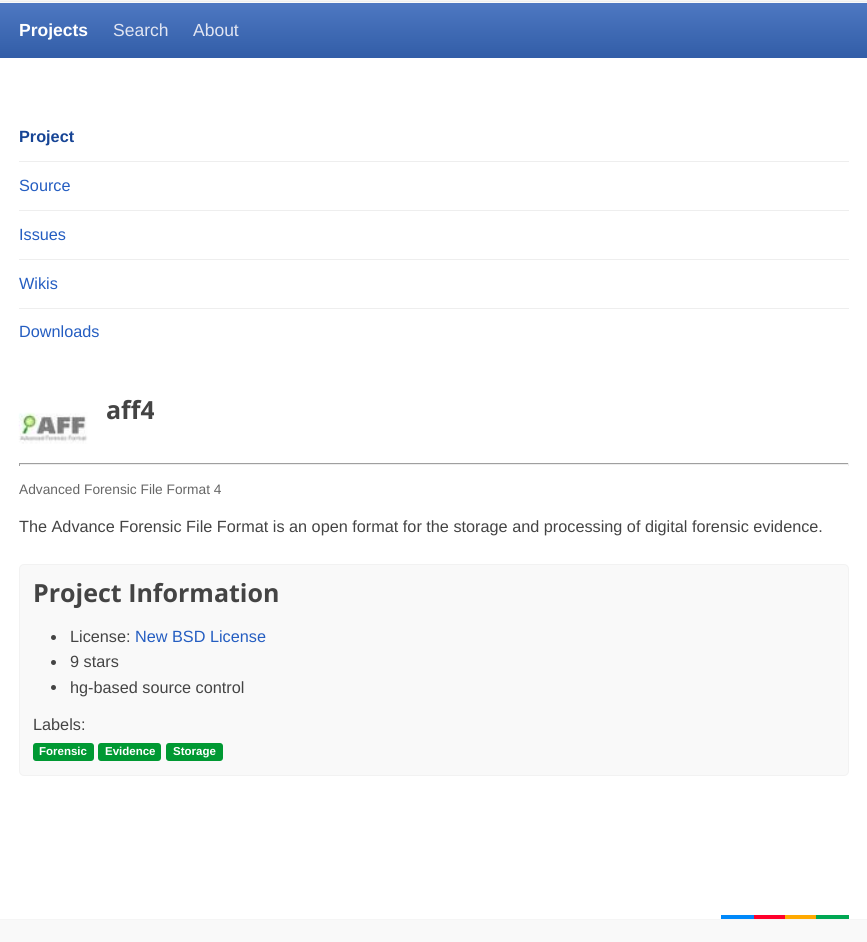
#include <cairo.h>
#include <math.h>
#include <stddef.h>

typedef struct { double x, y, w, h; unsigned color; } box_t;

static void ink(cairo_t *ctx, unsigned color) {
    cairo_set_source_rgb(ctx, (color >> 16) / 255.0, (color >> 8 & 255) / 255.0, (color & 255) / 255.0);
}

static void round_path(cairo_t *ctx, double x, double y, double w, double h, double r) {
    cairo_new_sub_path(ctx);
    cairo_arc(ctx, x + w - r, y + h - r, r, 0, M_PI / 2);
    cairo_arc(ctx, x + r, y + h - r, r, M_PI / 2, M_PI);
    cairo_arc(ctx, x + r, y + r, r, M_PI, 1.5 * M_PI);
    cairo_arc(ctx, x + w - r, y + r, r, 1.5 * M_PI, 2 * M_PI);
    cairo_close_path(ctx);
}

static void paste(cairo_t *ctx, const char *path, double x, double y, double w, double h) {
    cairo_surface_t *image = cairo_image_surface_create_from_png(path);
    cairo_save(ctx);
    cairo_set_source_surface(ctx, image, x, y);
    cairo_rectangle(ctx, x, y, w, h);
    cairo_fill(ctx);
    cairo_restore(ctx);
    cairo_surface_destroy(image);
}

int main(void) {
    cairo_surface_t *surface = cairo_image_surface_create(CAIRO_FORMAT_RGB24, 867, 942);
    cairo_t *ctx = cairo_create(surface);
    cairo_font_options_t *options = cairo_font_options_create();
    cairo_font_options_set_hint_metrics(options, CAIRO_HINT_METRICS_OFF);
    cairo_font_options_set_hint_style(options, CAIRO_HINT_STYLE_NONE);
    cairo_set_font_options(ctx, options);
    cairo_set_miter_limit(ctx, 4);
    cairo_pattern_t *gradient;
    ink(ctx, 0xFFFFFF);
    cairo_paint(ctx);
    gradient = cairo_pattern_create_linear(0, -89, 0, 1.2);
    cairo_pattern_add_color_stop_rgba(gradient, 0, 0.98, 0.98, 0.98, 1);
    cairo_pattern_add_color_stop_rgba(gradient, 1, 0.961, 0.961, 0.961, 1);
    cairo_set_source(ctx, gradient);
    cairo_pattern_destroy(gradient);
    cairo_rectangle(ctx, 0, 0, 867, 1);
    cairo_fill(ctx);
    gradient = cairo_pattern_create_linear(0, 1.2, 0, 91);
    cairo_pattern_add_color_stop_rgba(gradient, 0, 0.98, 0.98, 0.98, 1);
    cairo_pattern_add_color_stop_rgba(gradient, 1, 0.961, 0.961, 0.961, 1);
    cairo_set_source(ctx, gradient);
    cairo_pattern_destroy(gradient);
    cairo_rectangle(ctx, 0, 2, 867, 1);
    cairo_fill(ctx);
    ink(ctx, 0xEEEEEE);
    cairo_rectangle(ctx, 0, 1, 867, 1);
    cairo_fill(ctx);
    gradient = cairo_pattern_create_linear(0, 2.5, 0, 58);
    cairo_pattern_add_color_stop_rgba(gradient, 0, 0.306, 0.471, 0.761, 1);
    cairo_pattern_add_color_stop_rgba(gradient, 1, 0.196, 0.365, 0.655, 1);
    cairo_set_source(ctx, gradient);
    cairo_pattern_destroy(gradient);
    cairo_rectangle(ctx, 0, 3, 867, 55);
    cairo_fill(ctx);
    cairo_select_font_face(ctx, "Liberation Sans", CAIRO_FONT_SLANT_NORMAL, CAIRO_FONT_WEIGHT_BOLD);
    cairo_set_font_size(ctx, 17.5);
    ink(ctx, 0xFFFFFF);
    cairo_move_to(ctx, 19, 36);
    cairo_show_text(ctx, "Projects");
    cairo_select_font_face(ctx, "Liberation Sans", CAIRO_FONT_SLANT_NORMAL, CAIRO_FONT_WEIGHT_NORMAL);
    ink(ctx, 0xE1E5F2);
    cairo_move_to(ctx, 113, 36);
    cairo_show_text(ctx, "Search");
    cairo_move_to(ctx, 193, 36);
    cairo_show_text(ctx, "About");
    ink(ctx, 0xEEEEEE);
    cairo_rectangle(ctx, 19, 161, 830, 1);
    cairo_fill(ctx);
    cairo_select_font_face(ctx, "Liberation Sans", CAIRO_FONT_SLANT_NORMAL, CAIRO_FONT_WEIGHT_BOLD);
    cairo_set_font_size(ctx, 16.25);
    ink(ctx, 0x164495);
    cairo_move_to(ctx, 19, 142);
    cairo_show_text(ctx, "Project");
    ink(ctx, 0xEEEEEE);
    cairo_rectangle(ctx, 19, 210, 830, 1);
    cairo_fill(ctx);
    cairo_select_font_face(ctx, "Liberation Sans", CAIRO_FONT_SLANT_NORMAL, CAIRO_FONT_WEIGHT_NORMAL);
    ink(ctx, 0x245DC1);
    cairo_move_to(ctx, 19, 191);
    cairo_show_text(ctx, "Source");
    ink(ctx, 0xEEEEEE);
    cairo_rectangle(ctx, 19, 259, 830, 1);
    cairo_fill(ctx);
    ink(ctx, 0x245DC1);
    cairo_move_to(ctx, 19, 240);
    cairo_show_text(ctx, "Issues");
    ink(ctx, 0xEEEEEE);
    cairo_rectangle(ctx, 19, 308, 830, 1);
    cairo_fill(ctx);
    ink(ctx, 0x245DC1);
    cairo_move_to(ctx, 19, 289);
    cairo_show_text(ctx, "Wikis");
    cairo_move_to(ctx, 19, 337);
    cairo_show_text(ctx, "Downloads");
    cairo_select_font_face(ctx, "Open Sans", CAIRO_FONT_SLANT_NORMAL, CAIRO_FONT_WEIGHT_BOLD);
    cairo_set_font_size(ctx, 25);
    ink(ctx, 0x444444);
    cairo_move_to(ctx, 106, 419);
    cairo_show_text(ctx, "aff4");
    paste(ctx, "media/1.png", 18, 412, 70, 32);
    {
        static const box_t items[] = {
            {19, 463, 830, 1, 0x9F9F9F},
            {848, 463, 1, 3, 0xEEEEEE},
            {19, 464, 830, 1, 0xEEEEEE},
            {19, 463, 1, 3, 0x9F9F9F},
        };
        for (size_t i = 0; i < sizeof items / sizeof *items; i++) {
            ink(ctx, items[i].color);
            cairo_rectangle(ctx, items[i].x, items[i].y, items[i].w, items[i].h);
            cairo_fill(ctx);
        }
    }
    cairo_select_font_face(ctx, "Liberation Sans", CAIRO_FONT_SLANT_NORMAL, CAIRO_FONT_WEIGHT_NORMAL);
    cairo_set_font_size(ctx, 13.75);
    ink(ctx, 0x666666);
    cairo_move_to(ctx, 19, 494);
    cairo_show_text(ctx, "Advanced Forensic File Format 4");
    cairo_set_font_size(ctx, 16.25);
    ink(ctx, 0x444444);
    cairo_move_to(ctx, 19, 532);
    cairo_show_text(ctx, "The Advance Forensic File Format is an open format for the storage and processing of digital forensic evidence.");
    ink(ctx, 0xF9F9F9);
    round_path(ctx, 19.5, 564.5, 829, 211, 4.5);
    cairo_fill_preserve(ctx);
    ink(ctx, 0xF2F2F2);
    cairo_set_line_width(ctx, 1);
    cairo_stroke(ctx);
    cairo_select_font_face(ctx, "Open Sans", CAIRO_FONT_SLANT_NORMAL, CAIRO_FONT_WEIGHT_BOLD);
    cairo_set_font_size(ctx, 25);
    ink(ctx, 0x444444);
    cairo_move_to(ctx, 33, 602);
    cairo_show_text(ctx, "Project Information");
    cairo_new_path(ctx);
    cairo_arc(ctx, 53.5, 637.5, 2.5, 0, 2 * M_PI);
    cairo_fill(ctx);
    cairo_select_font_face(ctx, "Liberation Sans", CAIRO_FONT_SLANT_NORMAL, CAIRO_FONT_WEIGHT_NORMAL);
    cairo_set_font_size(ctx, 16.25);
    cairo_move_to(ctx, 70, 642);
    cairo_show_text(ctx, "License:");
    ink(ctx, 0x245DC1);
    cairo_move_to(ctx, 135, 642);
    cairo_show_text(ctx, "New BSD License");
    ink(ctx, 0x444444);
    cairo_new_path(ctx);
    cairo_arc(ctx, 53.5, 662.5, 2.5, 0, 2 * M_PI);
    cairo_fill(ctx);
    cairo_move_to(ctx, 70, 667);
    cairo_show_text(ctx, "9 stars");
    cairo_new_path(ctx);
    cairo_arc(ctx, 53.5, 687.5, 2.5, 0, 2 * M_PI);
    cairo_fill(ctx);
    cairo_move_to(ctx, 70, 693);
    cairo_show_text(ctx, "hg-based source control");
    cairo_move_to(ctx, 33, 730);
    cairo_show_text(ctx, "Labels:");
    ink(ctx, 0x009933);
    round_path(ctx, 33, 743, 61, 18, 3);
    cairo_fill(ctx);
    cairo_select_font_face(ctx, "Liberation Sans", CAIRO_FONT_SLANT_NORMAL, CAIRO_FONT_WEIGHT_BOLD);
    cairo_set_font_size(ctx, 11.5);
    ink(ctx, 0xFFFFFF);
    cairo_move_to(ctx, 39, 755);
    cairo_show_text(ctx, "Forensic");
    ink(ctx, 0x009933);
    round_path(ctx, 98, 743, 63, 18, 3);
    cairo_fill(ctx);
    ink(ctx, 0xFFFFFF);
    cairo_move_to(ctx, 105, 755);
    cairo_show_text(ctx, "Evidence");
    ink(ctx, 0x009933);
    round_path(ctx, 166, 743, 57, 18, 3);
    cairo_fill(ctx);
    ink(ctx, 0xFFFFFF);
    cairo_move_to(ctx, 173, 755);
    cairo_show_text(ctx, "Storage");
    {
        static const box_t items[] = {
            {754, 915, 31, 4, 0xFF002B},
            {721, 915, 33, 4, 0x0089FA},
            {816, 915, 33, 4, 0x00A753},
            {785, 915, 31, 4, 0xFFA900},
            {0, 920, 867, 22, 0xF9F9F9},
            {0, 919, 867, 1, 0xF5F5F5},
        };
        for (size_t i = 0; i < sizeof items / sizeof *items; i++) {
            ink(ctx, items[i].color);
            cairo_rectangle(ctx, items[i].x, items[i].y, items[i].w, items[i].h);
            cairo_fill(ctx);
        }
    }
    cairo_surface_write_to_png(surface, "image.png");
    cairo_font_options_destroy(options);
    cairo_destroy(ctx);
    cairo_surface_destroy(surface);
    return 0;
}
